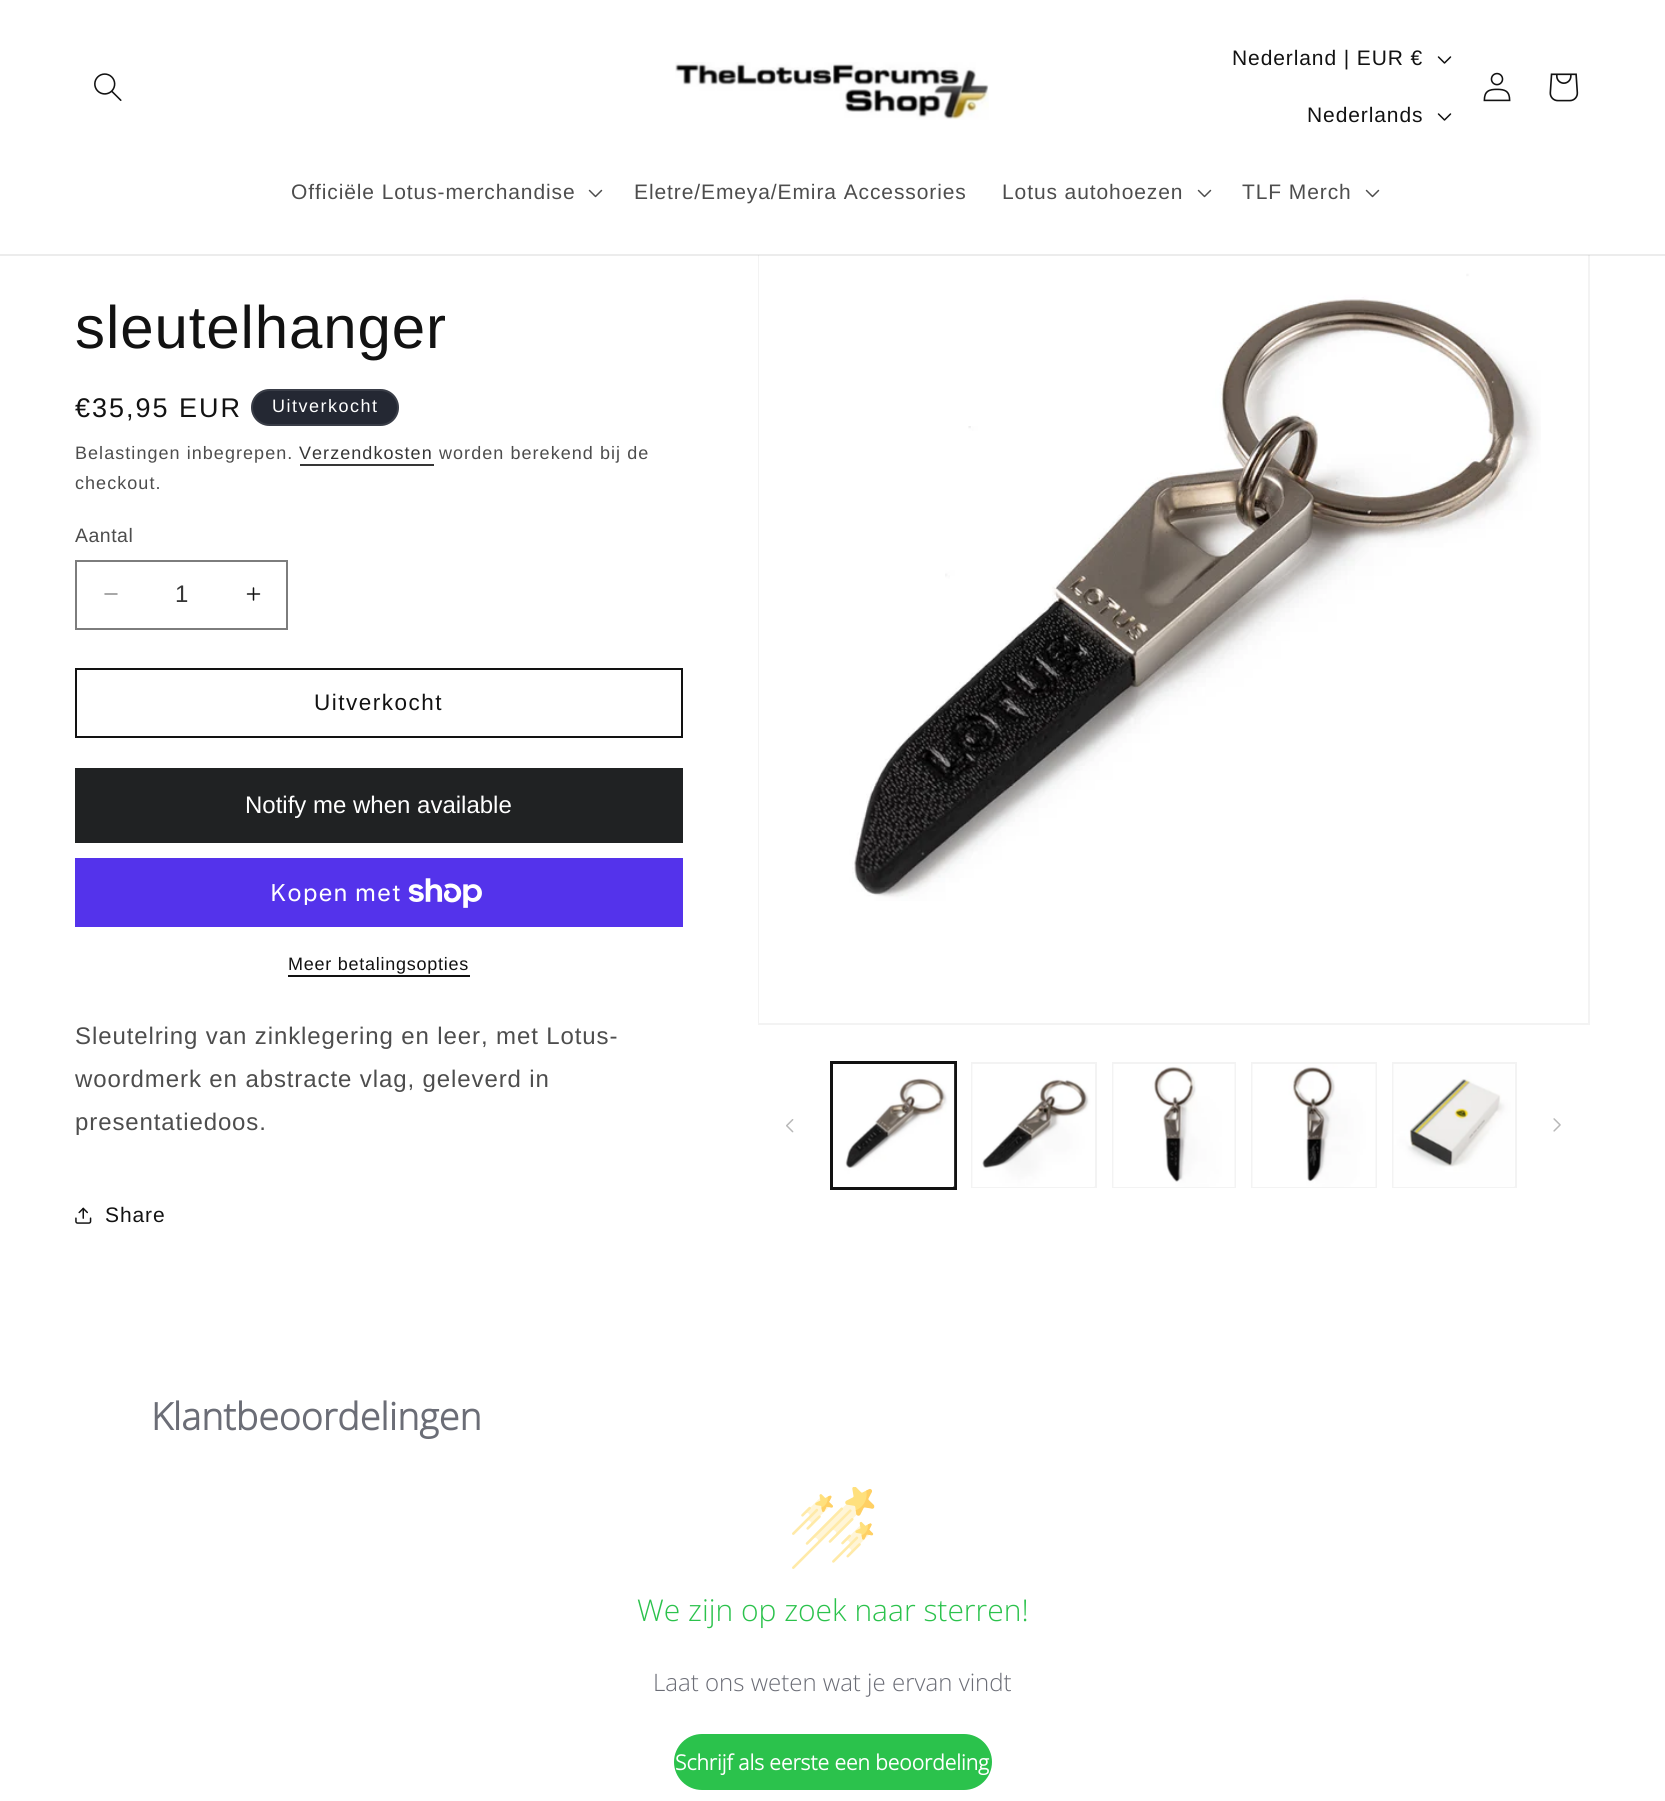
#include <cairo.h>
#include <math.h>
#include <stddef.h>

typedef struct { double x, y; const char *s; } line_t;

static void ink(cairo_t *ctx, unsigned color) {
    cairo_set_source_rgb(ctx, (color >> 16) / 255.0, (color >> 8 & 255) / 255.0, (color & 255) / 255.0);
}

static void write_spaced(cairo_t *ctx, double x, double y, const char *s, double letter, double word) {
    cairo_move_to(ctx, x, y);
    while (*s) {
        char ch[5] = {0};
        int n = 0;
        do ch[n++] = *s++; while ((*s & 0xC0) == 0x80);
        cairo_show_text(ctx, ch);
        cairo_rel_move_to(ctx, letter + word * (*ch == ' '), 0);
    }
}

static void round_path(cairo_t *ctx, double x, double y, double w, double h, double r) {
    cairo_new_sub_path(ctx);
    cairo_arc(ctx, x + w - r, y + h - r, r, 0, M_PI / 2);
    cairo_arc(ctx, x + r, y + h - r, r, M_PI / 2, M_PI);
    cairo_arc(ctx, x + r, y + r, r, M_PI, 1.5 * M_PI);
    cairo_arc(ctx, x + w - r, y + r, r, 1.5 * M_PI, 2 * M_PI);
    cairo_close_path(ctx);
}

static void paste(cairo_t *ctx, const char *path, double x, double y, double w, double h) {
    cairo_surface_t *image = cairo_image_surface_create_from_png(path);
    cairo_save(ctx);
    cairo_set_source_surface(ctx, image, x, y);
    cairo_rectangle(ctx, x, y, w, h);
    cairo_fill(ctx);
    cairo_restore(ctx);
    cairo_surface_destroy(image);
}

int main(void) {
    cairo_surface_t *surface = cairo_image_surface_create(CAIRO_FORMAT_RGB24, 1665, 1801);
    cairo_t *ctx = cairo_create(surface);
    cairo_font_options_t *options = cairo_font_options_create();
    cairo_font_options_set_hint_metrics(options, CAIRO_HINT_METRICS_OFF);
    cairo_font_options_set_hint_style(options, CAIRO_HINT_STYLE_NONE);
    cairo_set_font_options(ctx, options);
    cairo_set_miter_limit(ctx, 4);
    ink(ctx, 0xFFFFFF);
    cairo_paint(ctx);
    cairo_rectangle(ctx, 759, 193, 830, 831);
    ink(ctx, 0xF3F3F3);
    cairo_stroke(ctx);
    ink(ctx, 0xFFFFFF);
    cairo_rectangle(ctx, 758, 192, 832, 63);
    cairo_fill(ctx);
    paste(ctx, "media/11.png", 759, 255, 782, 768);
    cairo_set_source_rgba(ctx, 0.071, 0.071, 0.071, 0.08);
    cairo_rectangle(ctx, 0, 254, 1665, 2);
    cairo_fill(ctx);
    paste(ctx, "media/1.png", 94, 73, 28, 28);
    paste(ctx, "media/2.png", 675, 62, 314, 58);
    cairo_select_font_face(ctx, "Liberation Sans", CAIRO_FONT_SLANT_NORMAL, CAIRO_FONT_WEIGHT_NORMAL);
    cairo_set_font_size(ctx, 21);
    ink(ctx, 0x121212);
    write_spaced(ctx, 1232, 65, "Nederland | EUR €", 0.9, 0);
    paste(ctx, "media/3.png", 1437, 56, 15, 8);
    write_spaced(ctx, 1307, 122, "Nederlands", 0.9, 0);
    paste(ctx, "media/3.png", 1437, 113, 15, 8);
    paste(ctx, "media/4.png", 1483, 72, 28, 30);
    paste(ctx, "media/5.png", 1549, 73, 30, 29);
    ink(ctx, 0x4D4D4D);
    write_spaced(ctx, 291, 199, "Officiële Lotus-merchandise", 0.9, 0);
    paste(ctx, "media/6.png", 588, 189, 15, 9);
    write_spaced(ctx, 634, 199, "Eletre/Emeya/Emira Accessories", 0.9, 0);
    write_spaced(ctx, 1002, 199, "Lotus autohoezen", 0.9, 0);
    paste(ctx, "media/6.png", 1197, 189, 15, 9);
    write_spaced(ctx, 1242, 199, "TLF Merch", 0.9, 0);
    paste(ctx, "media/6.png", 1365, 189, 15, 9);
    cairo_set_font_size(ctx, 60);
    ink(ctx, 0x121212);
    write_spaced(ctx, 75, 348, "sleutelhanger", 0.9, 0);
    cairo_set_font_size(ctx, 27);
    write_spaced(ctx, 75, 417, "€35,95 EUR", 2, 0);
    ink(ctx, 0x242833);
    round_path(ctx, 251, 389, 148, 37, 18.5);
    cairo_fill(ctx);
    round_path(ctx, 252, 390, 146, 35, 17.5);
    cairo_set_source_rgba(ctx, 1, 1, 1, 0.1);
    cairo_stroke(ctx);
    cairo_set_font_size(ctx, 18);
    ink(ctx, 0xFFFFFF);
    write_spaced(ctx, 272, 412, "Uitverkocht", 1.5, 0);
    ink(ctx, 0x4D4D4D);
    write_spaced(ctx, 75, 459, "Belastingen inbegrepen.", 1.05, 0);
    ink(ctx, 0x363636);
    write_spaced(ctx, 299, 459, "Verzendkosten", 1.05, 0);
    cairo_rectangle(ctx, 300, 464, 134, 2);
    cairo_fill(ctx);
    ink(ctx, 0x4D4D4D);
    write_spaced(ctx, 439, 459, "worden berekend bij de", 1.05, 0);
    write_spaced(ctx, 75, 489, "checkout.", 1.05, 0);
    cairo_set_font_size(ctx, 19.5);
    write_spaced(ctx, 75, 542, "Aantal", 0.5, 0);
    paste(ctx, "media/7.png", 104, 593, 14, 2);
    paste(ctx, "media/8.png", 246, 587, 15, 14);
    cairo_rectangle(ctx, 76, 561, 211, 68);
    ink(ctx, 0x7D7D7D);
    cairo_stroke(ctx);
    cairo_set_font_size(ctx, 24);
    ink(ctx, 0x363636);
    cairo_move_to(ctx, 175, 602);
    cairo_show_text(ctx, "1");
    cairo_rectangle(ctx, 76, 669, 606, 68);
    ink(ctx, 0x121212);
    cairo_stroke(ctx);
    cairo_set_font_size(ctx, 22.5);
    write_spaced(ctx, 314, 710, "Uitverkocht", 1.5, 0);
    ink(ctx, 0x202223);
    cairo_rectangle(ctx, 75, 768, 608, 75);
    cairo_fill(ctx);
    cairo_set_font_size(ctx, 24);
    ink(ctx, 0xFFFFFF);
    cairo_move_to(ctx, 245, 813);
    cairo_show_text(ctx, "Notify me when available");
    ink(ctx, 0x5433EB);
    cairo_rectangle(ctx, 75, 858, 608, 69);
    cairo_fill(ctx);
    cairo_select_font_face(ctx, "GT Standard", CAIRO_FONT_SLANT_NORMAL, CAIRO_FONT_WEIGHT_NORMAL);
    ink(ctx, 0xFFFFFF);
    write_spaced(ctx, 270, 901, "Kopen met", 0.9, 0);
    paste(ctx, "media/9.png", 408, 878, 74, 30);
    cairo_select_font_face(ctx, "Liberation Sans", CAIRO_FONT_SLANT_NORMAL, CAIRO_FONT_WEIGHT_NORMAL);
    cairo_set_font_size(ctx, 18);
    ink(ctx, 0x121212);
    write_spaced(ctx, 288, 970, "Meer betalingsopties", 0.75, 0);
    cairo_rectangle(ctx, 288, 975, 182, 2);
    cairo_fill(ctx);
    cairo_set_font_size(ctx, 24);
    ink(ctx, 0x4D4D4D);
    {
        static const line_t items[] = {
            {75, 1044, "Sleutelring van zinklegering en leer, met Lotus-"},
            {75, 1087, "woordmerk en abstracte vlag, geleverd in"},
            {75, 1130, "presentatiedoos."},
        };
        for (size_t i = 0; i < sizeof items / sizeof *items; i++) {
            write_spaced(ctx, items[i].x, items[i].y, items[i].s, 0.9, 0);
        }
    }
    paste(ctx, "media/10.png", 75, 1207, 17, 17);
    cairo_set_font_size(ctx, 21);
    ink(ctx, 0x121212);
    write_spaced(ctx, 105, 1222, "Share", 0.9, 0);
    paste(ctx, "media/12.png", 786, 1119, 8, 14);
    cairo_rectangle(ctx, 831, 1062, 125, 127);
    cairo_stroke(ctx);
    cairo_rectangle(ctx, 832, 1063, 123, 124);
    cairo_stroke(ctx);
    paste(ctx, "media/13.png", 833, 1064, 122, 123);
    cairo_rectangle(ctx, 972, 1063, 124, 124);
    ink(ctx, 0xF3F3F3);
    cairo_stroke(ctx);
    paste(ctx, "media/14.png", 972, 1064, 123, 123);
    cairo_rectangle(ctx, 1113, 1063, 122, 124);
    cairo_stroke(ctx);
    paste(ctx, "media/15.png", 1113, 1064, 122, 123);
    cairo_rectangle(ctx, 1252, 1063, 124, 124);
    cairo_stroke(ctx);
    paste(ctx, "media/16.png", 1252, 1064, 124, 123);
    cairo_rectangle(ctx, 1393, 1063, 123, 124);
    cairo_stroke(ctx);
    paste(ctx, "media/17.png", 1393, 1064, 122, 123);
    paste(ctx, "media/18.png", 1553, 1118, 8, 14);
    cairo_select_font_face(ctx, "Open Sans", CAIRO_FONT_SLANT_NORMAL, CAIRO_FONT_WEIGHT_BOLD);
    cairo_set_font_size(ctx, 37.5);
    ink(ctx, 0x6B6D76);
    cairo_move_to(ctx, 151, 1430);
    cairo_show_text(ctx, "Klantbeoordelingen");
    paste(ctx, "media/19.png", 792, 1487, 83, 82);
    cairo_select_font_face(ctx, "Open Sans Light", CAIRO_FONT_SLANT_NORMAL, CAIRO_FONT_WEIGHT_NORMAL);
    cairo_set_font_size(ctx, 30);
    ink(ctx, 0x2BC24C);
    cairo_move_to(ctx, 637, 1621);
    cairo_show_text(ctx, "We zijn op zoek naar sterren!");
    cairo_set_font_size(ctx, 24);
    ink(ctx, 0x6B6D76);
    cairo_move_to(ctx, 653, 1691);
    cairo_show_text(ctx, "Laat ons weten wat je ervan vindt");
    ink(ctx, 0x2BC24C);
    round_path(ctx, 674, 1734, 318, 56, 28);
    cairo_fill(ctx);
    cairo_select_font_face(ctx, "Open Sans", CAIRO_FONT_SLANT_NORMAL, CAIRO_FONT_WEIGHT_BOLD);
    cairo_set_font_size(ctx, 21);
    ink(ctx, 0xFFFFFF);
    cairo_move_to(ctx, 675, 1770);
    cairo_show_text(ctx, "Schrijf als eerste een beoordeling");
    cairo_surface_write_to_png(surface, "image.png");
    cairo_font_options_destroy(options);
    cairo_destroy(ctx);
    cairo_surface_destroy(surface);
    return 0;
}
